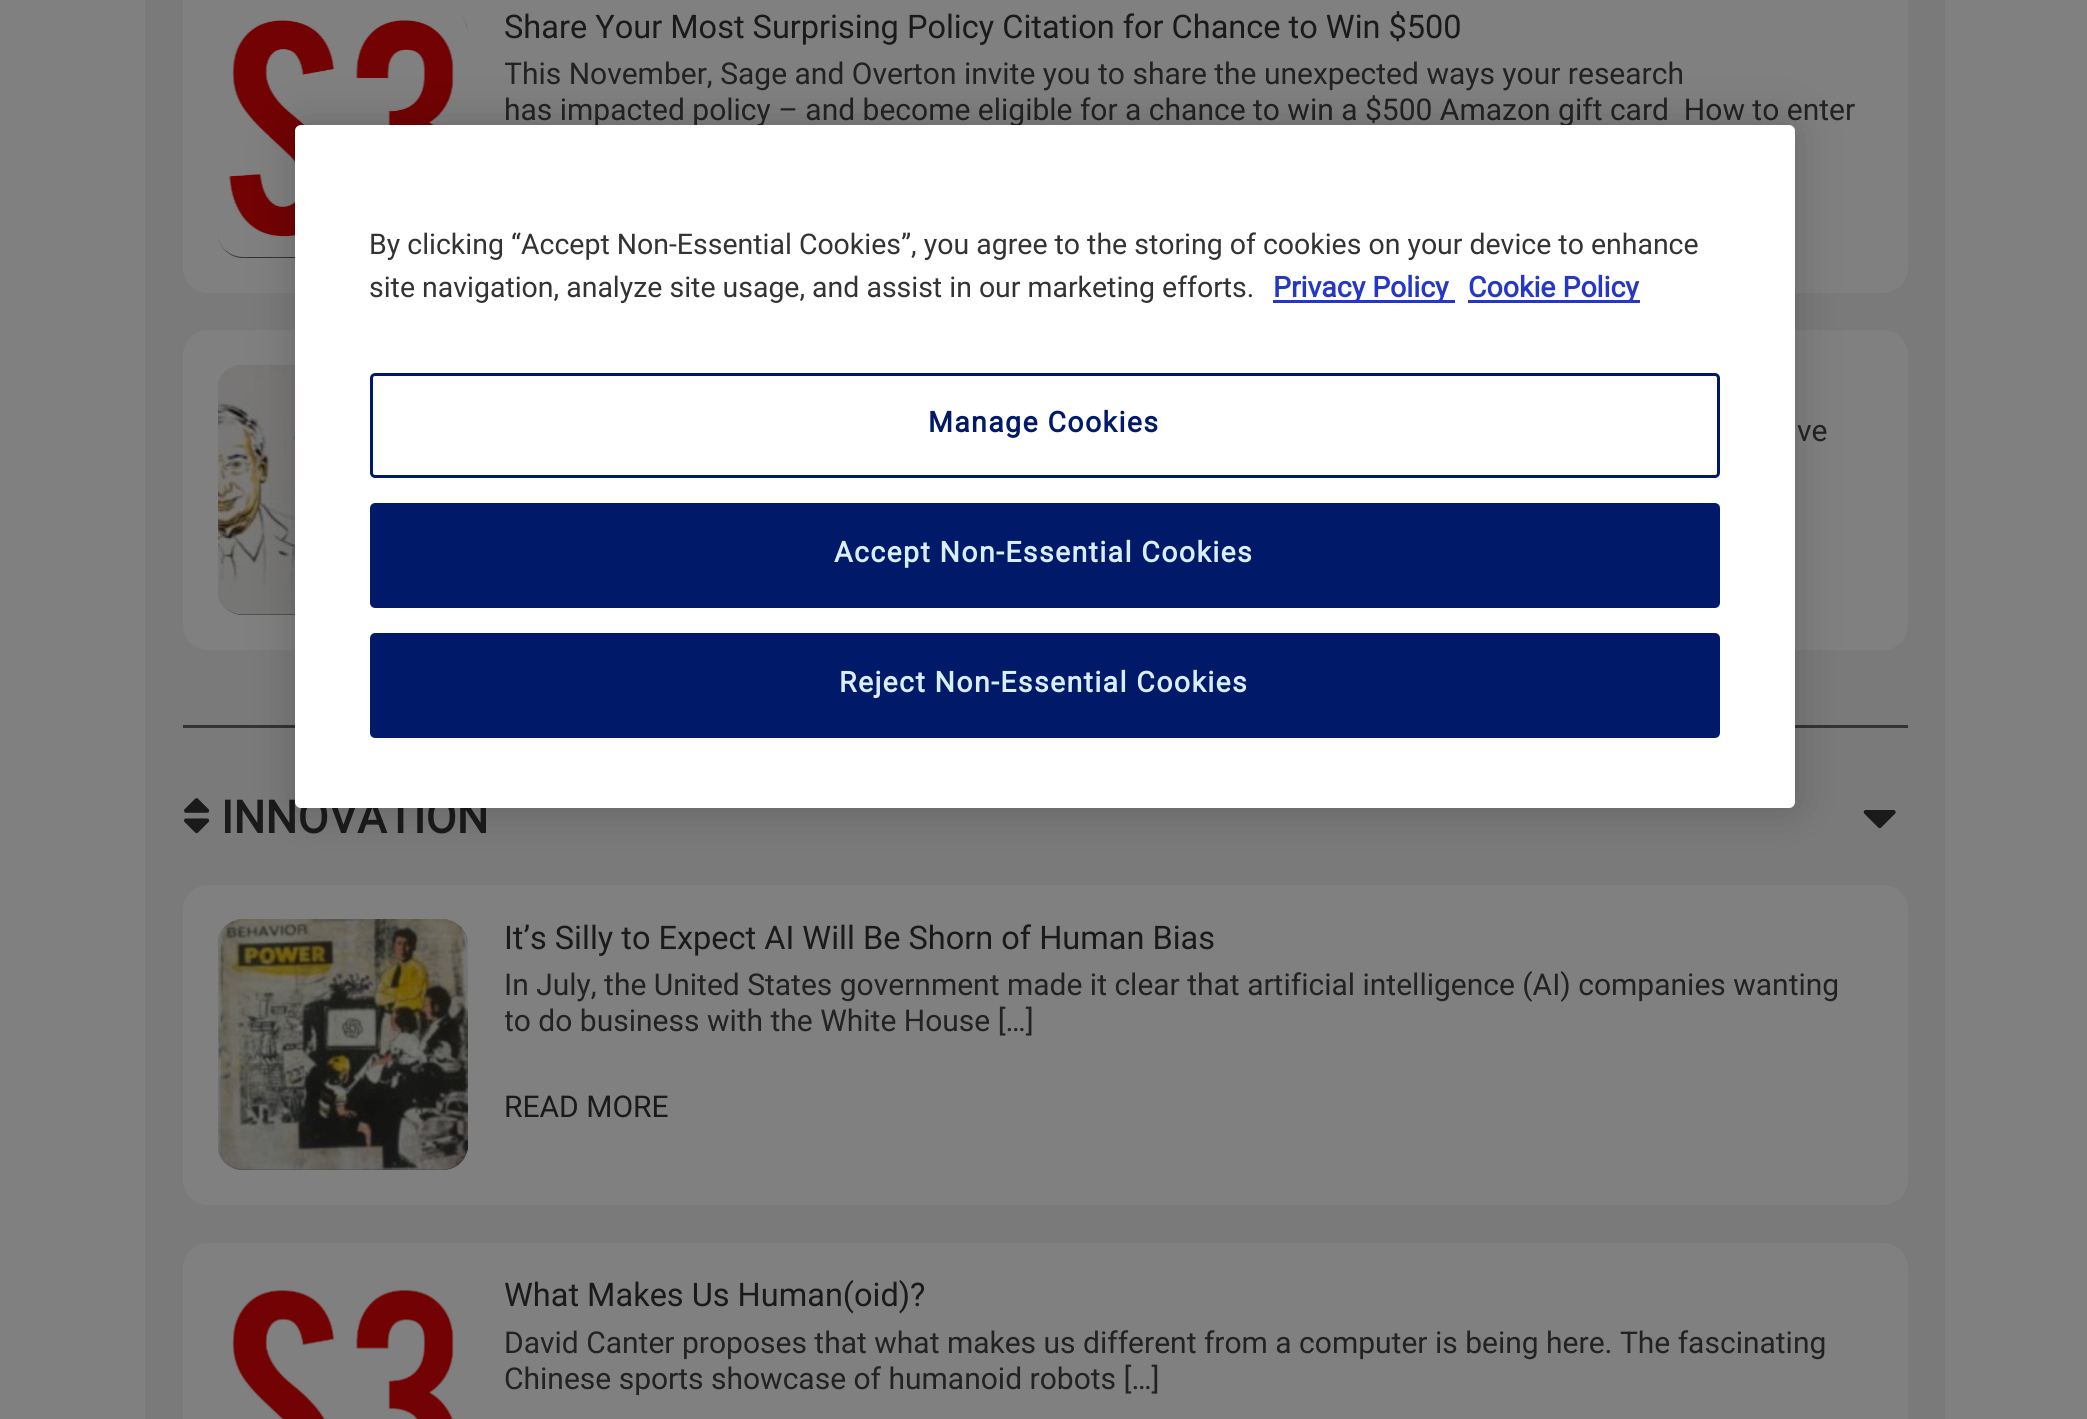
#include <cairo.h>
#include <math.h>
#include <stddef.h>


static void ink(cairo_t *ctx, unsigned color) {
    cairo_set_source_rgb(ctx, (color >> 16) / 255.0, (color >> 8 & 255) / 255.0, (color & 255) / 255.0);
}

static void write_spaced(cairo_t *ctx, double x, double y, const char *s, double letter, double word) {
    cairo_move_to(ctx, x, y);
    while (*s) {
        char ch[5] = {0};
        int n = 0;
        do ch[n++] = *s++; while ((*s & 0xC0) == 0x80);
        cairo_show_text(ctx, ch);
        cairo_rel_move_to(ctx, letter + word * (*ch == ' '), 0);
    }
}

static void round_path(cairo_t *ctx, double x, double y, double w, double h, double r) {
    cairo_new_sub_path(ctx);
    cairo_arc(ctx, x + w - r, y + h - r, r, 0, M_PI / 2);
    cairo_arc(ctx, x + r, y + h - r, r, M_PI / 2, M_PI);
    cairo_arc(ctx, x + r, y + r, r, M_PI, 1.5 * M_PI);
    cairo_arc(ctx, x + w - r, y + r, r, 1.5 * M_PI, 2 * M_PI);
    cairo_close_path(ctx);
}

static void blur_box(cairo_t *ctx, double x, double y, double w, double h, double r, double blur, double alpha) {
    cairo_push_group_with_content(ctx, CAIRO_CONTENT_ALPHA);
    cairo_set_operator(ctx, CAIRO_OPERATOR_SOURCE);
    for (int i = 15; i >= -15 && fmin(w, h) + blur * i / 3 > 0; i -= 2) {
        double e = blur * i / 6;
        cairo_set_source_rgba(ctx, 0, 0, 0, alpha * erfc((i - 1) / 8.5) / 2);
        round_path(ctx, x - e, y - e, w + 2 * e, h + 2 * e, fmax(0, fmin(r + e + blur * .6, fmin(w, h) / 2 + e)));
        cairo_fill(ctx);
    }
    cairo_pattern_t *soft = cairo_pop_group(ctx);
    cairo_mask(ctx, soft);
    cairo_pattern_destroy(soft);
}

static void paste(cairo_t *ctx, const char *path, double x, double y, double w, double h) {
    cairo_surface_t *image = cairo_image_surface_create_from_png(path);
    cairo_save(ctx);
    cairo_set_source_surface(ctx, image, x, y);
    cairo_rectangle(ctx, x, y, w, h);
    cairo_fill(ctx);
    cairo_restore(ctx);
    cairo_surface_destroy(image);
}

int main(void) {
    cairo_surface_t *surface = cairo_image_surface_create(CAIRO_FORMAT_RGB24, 2087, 1419);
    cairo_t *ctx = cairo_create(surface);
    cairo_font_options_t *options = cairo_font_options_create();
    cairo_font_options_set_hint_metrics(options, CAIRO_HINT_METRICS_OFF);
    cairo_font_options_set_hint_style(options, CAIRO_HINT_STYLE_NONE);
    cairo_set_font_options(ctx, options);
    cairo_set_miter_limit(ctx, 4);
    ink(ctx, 0x808080);
    cairo_paint(ctx);
    ink(ctx, 0x7A7A7A);
    cairo_rectangle(ctx, 145, 0, 1800, 1419);
    cairo_fill(ctx);
    ink(ctx, 0x333333);
    cairo_rectangle(ctx, 183, 725, 1725, 3);
    cairo_fill(ctx);
    ink(ctx, 0x808080);
    round_path(ctx, 183, -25, 1725, 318, 25);
    cairo_fill(ctx);
    ink(ctx, 0x333333);
    round_path(ctx, 218, 8, 250, 250, 25);
    cairo_fill(ctx);
    paste(ctx, "media/1.png", 218, 8, 250, 249);
    paste(ctx, "media/2.png", 218, 10, 250, 240);
    cairo_select_font_face(ctx, "Roboto", CAIRO_FONT_SLANT_NORMAL, CAIRO_FONT_WEIGHT_NORMAL);
    cairo_set_font_size(ctx, 32.5);
    ink(ctx, 0x1A1A1A);
    cairo_move_to(ctx, 504, 38);
    cairo_show_text(ctx, "Share Your Most Surprising Policy Citation for Chance to Win $500");
    cairo_save(ctx);
    cairo_rectangle(ctx, 505, 58, 1368, 110);
    cairo_clip(ctx);
    cairo_set_font_size(ctx, 30);
    ink(ctx, 0x222222);
    cairo_move_to(ctx, 504, 84);
    cairo_show_text(ctx, "This November, Sage and Overton invite you to share the unexpected ways your research");
    cairo_restore(ctx);
    cairo_set_font_size(ctx, 30);
    ink(ctx, 0x222222);
    cairo_move_to(ctx, 504, 120);
    cairo_show_text(ctx, "has impacted policy – and become eligible for a chance to win a $500 Amazon gift card  How to enter");
    ink(ctx, 0x808080);
    round_path(ctx, 183, 330, 1725, 320, 25);
    cairo_fill(ctx);
    ink(ctx, 0x333333);
    round_path(ctx, 218, 365, 250, 250, 25);
    cairo_fill(ctx);
    paste(ctx, "media/3.png", 218, 364, 77, 251);
    paste(ctx, "media/4.png", 218, 365, 77, 250);
    ink(ctx, 0x222222);
    cairo_move_to(ctx, 1797, 441);
    cairo_show_text(ctx, "ve");
    paste(ctx, "media/5.png", 184, 798, 26, 36);
    cairo_select_font_face(ctx, "Roboto", CAIRO_FONT_SLANT_NORMAL, CAIRO_FONT_WEIGHT_BOLD);
    cairo_set_font_size(ctx, 45);
    ink(ctx, 0x1A1A1A);
    cairo_move_to(ctx, 221, 833);
    cairo_show_text(ctx, "INNOVATION");
    paste(ctx, "media/6.png", 1863, 810, 33, 19);
    ink(ctx, 0x808080);
    round_path(ctx, 183, 885, 1725, 320, 25);
    cairo_fill(ctx);
    ink(ctx, 0x333333);
    round_path(ctx, 218, 920, 250, 250, 25);
    cairo_fill(ctx);
    paste(ctx, "media/7.png", 218, 919, 250, 251);
    paste(ctx, "media/8.png", 218, 919, 250, 251);
    cairo_select_font_face(ctx, "Roboto", CAIRO_FONT_SLANT_NORMAL, CAIRO_FONT_WEIGHT_NORMAL);
    cairo_set_font_size(ctx, 32.5);
    ink(ctx, 0x1A1A1A);
    cairo_move_to(ctx, 504, 949);
    cairo_show_text(ctx, "It’s Silly to Expect AI Will Be Shorn of Human Bias");
    cairo_set_font_size(ctx, 30);
    ink(ctx, 0x222222);
    cairo_move_to(ctx, 504, 995);
    cairo_show_text(ctx, "In July, the United States government made it clear that artificial intelligence (AI) companies wanting");
    cairo_save(ctx);
    cairo_rectangle(ctx, 505, 968, 1368, 110);
    cairo_clip(ctx);
    cairo_move_to(ctx, 504, 1031);
    cairo_show_text(ctx, "to do business with the White House […]");
    cairo_restore(ctx);
    ink(ctx, 0x1A1A1A);
    cairo_move_to(ctx, 504, 1117);
    cairo_show_text(ctx, "READ MORE");
    ink(ctx, 0x808080);
    round_path(ctx, 183, 1243, 1725, 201, 25);
    cairo_fill(ctx);
    paste(ctx, "media/9.png", 218, 1278, 250, 25);
    paste(ctx, "media/10.png", 218, 1278, 250, 141);
    cairo_set_font_size(ctx, 32.5);
    ink(ctx, 0x1A1A1A);
    cairo_move_to(ctx, 504, 1306);
    cairo_show_text(ctx, "What Makes Us Human(oid)?");
    cairo_set_font_size(ctx, 30);
    ink(ctx, 0x222222);
    cairo_move_to(ctx, 504, 1353);
    cairo_show_text(ctx, "David Canter proposes that what makes us different from a computer is being here. The fascinating");
    cairo_move_to(ctx, 504, 1389);
    cairo_show_text(ctx, "Chinese sports showcase of humanoid robots […]");
    ink(ctx, 0x000000);
    blur_box(ctx, 295, 125, 1500, 683, 6, 22.5, 0.2);
    ink(ctx, 0xFFFFFF);
    round_path(ctx, 295, 125, 1500, 683, 6);
    cairo_fill(ctx);
    cairo_set_font_size(ctx, 28.45);
    ink(ctx, 0x333333);
    cairo_move_to(ctx, 369, 254);
    cairo_show_text(ctx, "By clicking “Accept Non-Essential Cookies”, you agree to the storing of cookies on your device to enhance");
    cairo_move_to(ctx, 369, 297);
    cairo_show_text(ctx, "site navigation, analyze site usage, and assist in our marketing efforts.");
    ink(ctx, 0x2537C6);
    cairo_rectangle(ctx, 1273, 300, 182, 3);
    cairo_fill(ctx);
    cairo_select_font_face(ctx, "Roboto", CAIRO_FONT_SLANT_NORMAL, CAIRO_FONT_WEIGHT_BOLD);
    cairo_move_to(ctx, 1273, 297);
    cairo_show_text(ctx, "Privacy Policy");
    cairo_rectangle(ctx, 1468, 300, 172, 3);
    cairo_fill(ctx);
    cairo_move_to(ctx, 1468, 297);
    cairo_show_text(ctx, "Cookie Policy");
    round_path(ctx, 371.5, 374.5, 1347, 102, 3.5);
    ink(ctx, 0x001A69);
    cairo_set_line_width(ctx, 3);
    cairo_stroke(ctx);
    write_spaced(ctx, 928, 432, "Manage Cookies", 1.4, 0);
    round_path(ctx, 371.5, 504.5, 1347, 102, 3.5);
    cairo_fill_preserve(ctx);
    cairo_stroke(ctx);
    ink(ctx, 0xD9EEFF);
    write_spaced(ctx, 834, 562, "Accept Non-Essential Cookies", 1.4, 0);
    ink(ctx, 0x001A69);
    round_path(ctx, 371.5, 634.5, 1347, 102, 3.5);
    cairo_fill_preserve(ctx);
    cairo_stroke(ctx);
    ink(ctx, 0xD9EEFF);
    write_spaced(ctx, 839, 692, "Reject Non-Essential Cookies", 1.4, 0);
    cairo_surface_write_to_png(surface, "image.png");
    cairo_font_options_destroy(options);
    cairo_destroy(ctx);
    cairo_surface_destroy(surface);
    return 0;
}
